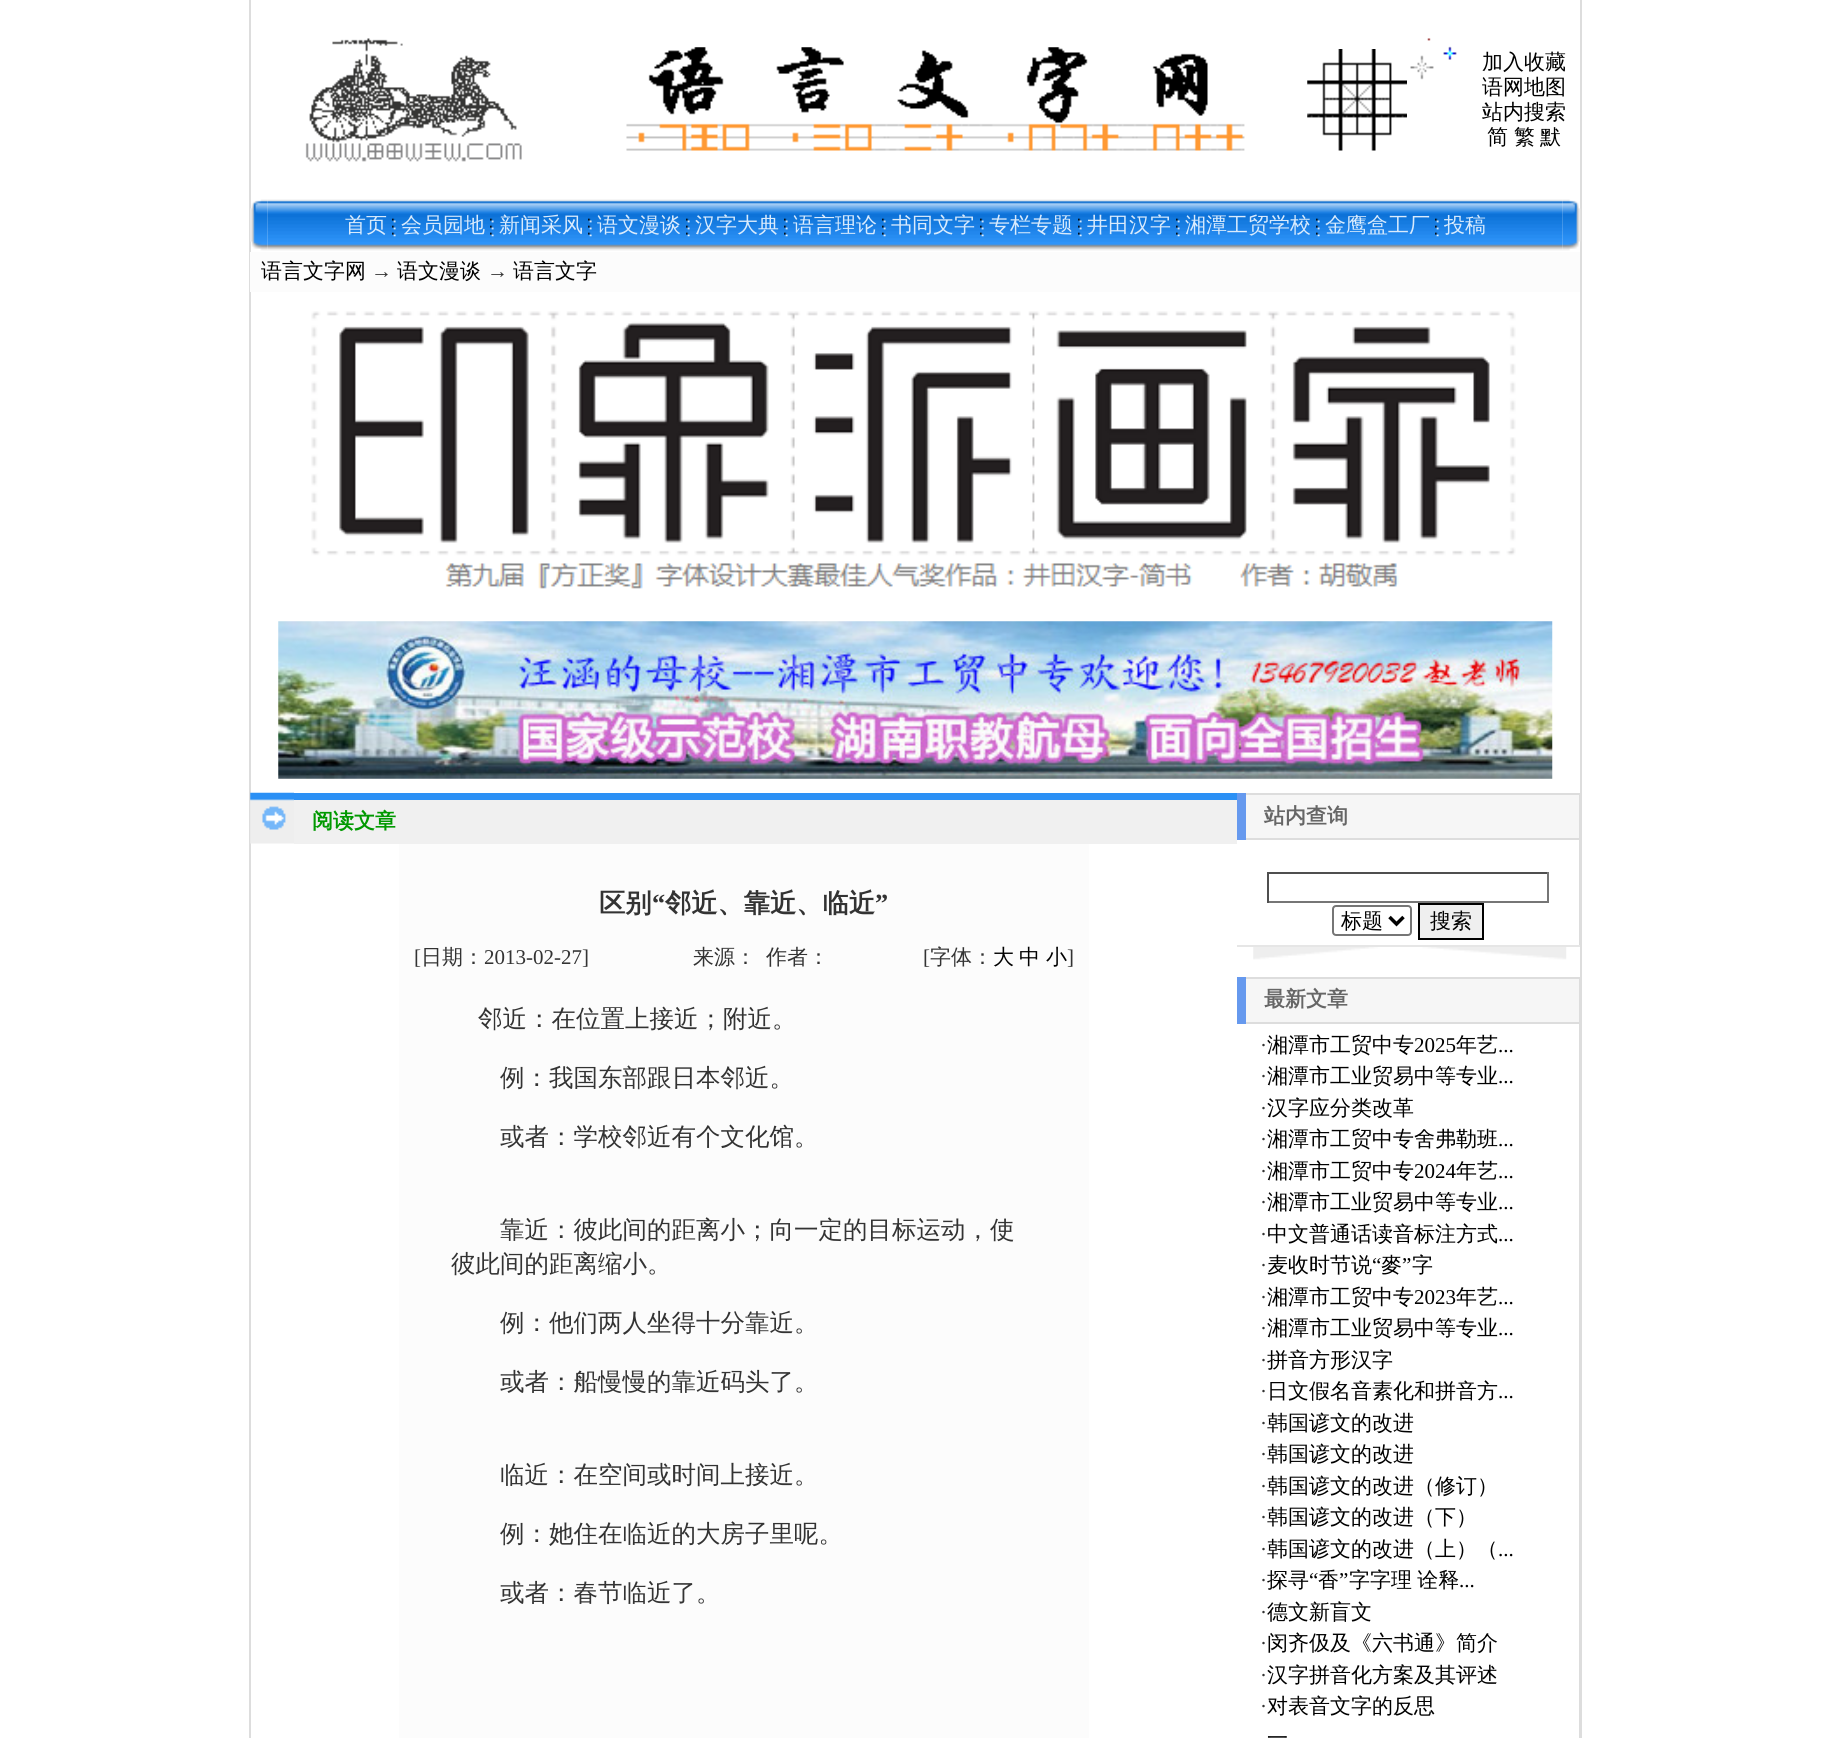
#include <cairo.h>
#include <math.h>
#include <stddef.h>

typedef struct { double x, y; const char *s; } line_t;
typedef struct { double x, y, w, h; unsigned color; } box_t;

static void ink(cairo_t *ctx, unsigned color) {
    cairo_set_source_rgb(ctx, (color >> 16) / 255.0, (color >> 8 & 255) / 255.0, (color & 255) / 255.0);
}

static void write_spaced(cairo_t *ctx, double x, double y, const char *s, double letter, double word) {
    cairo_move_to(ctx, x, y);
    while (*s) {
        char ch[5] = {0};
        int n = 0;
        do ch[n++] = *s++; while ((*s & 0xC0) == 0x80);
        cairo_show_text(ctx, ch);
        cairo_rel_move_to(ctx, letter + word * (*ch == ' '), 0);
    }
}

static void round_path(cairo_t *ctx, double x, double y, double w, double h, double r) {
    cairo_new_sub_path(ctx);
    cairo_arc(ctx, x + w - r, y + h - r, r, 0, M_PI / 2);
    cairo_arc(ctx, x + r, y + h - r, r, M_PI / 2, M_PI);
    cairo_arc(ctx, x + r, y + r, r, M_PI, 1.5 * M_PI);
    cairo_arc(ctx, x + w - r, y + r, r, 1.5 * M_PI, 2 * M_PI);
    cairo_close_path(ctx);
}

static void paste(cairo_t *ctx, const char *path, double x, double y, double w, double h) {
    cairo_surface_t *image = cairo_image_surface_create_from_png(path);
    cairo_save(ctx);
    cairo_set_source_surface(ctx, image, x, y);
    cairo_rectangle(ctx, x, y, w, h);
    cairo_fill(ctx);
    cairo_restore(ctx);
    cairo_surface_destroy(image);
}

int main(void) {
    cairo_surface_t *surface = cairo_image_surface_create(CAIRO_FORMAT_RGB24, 1830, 1738);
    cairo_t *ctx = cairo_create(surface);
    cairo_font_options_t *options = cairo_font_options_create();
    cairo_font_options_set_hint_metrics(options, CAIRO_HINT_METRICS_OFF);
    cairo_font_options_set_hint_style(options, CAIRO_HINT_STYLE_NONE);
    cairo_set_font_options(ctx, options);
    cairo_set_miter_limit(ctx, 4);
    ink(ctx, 0xFFFFFF);
    cairo_paint(ctx);
    ink(ctx, 0xDDDDDD);
    cairo_rectangle(ctx, 1580, 0, 2, 1738);
    cairo_fill(ctx);
    cairo_rectangle(ctx, 249, 0, 2, 1738);
    cairo_fill(ctx);
    paste(ctx, "media/1.png", 305, 38, 217, 124);
    paste(ctx, "media/2.png", 626, 47, 619, 104);
    paste(ctx, "media/3.png", 1307, 49, 100, 102);
    paste(ctx, "media/4.png", 1410, 38, 47, 42);
    cairo_select_font_face(ctx, "WenQuanYi Zen Hei Medium", CAIRO_FONT_SLANT_NORMAL, CAIRO_FONT_WEIGHT_NORMAL);
    cairo_set_font_size(ctx, 21);
    ink(ctx, 0x000000);
    {
        static const line_t items[] = {
            {1482, 69, "加入收藏"},
            {1482, 94, "语网地图"},
            {1482, 119, "站内搜索"},
            {1487, 144, "简"},
            {1514, 144, "繁"},
            {1540, 144, "默"},
        };
        for (size_t i = 0; i < sizeof items / sizeof *items; i++) {
            cairo_move_to(ctx, items[i].x, items[i].y);
            cairo_show_text(ctx, items[i].s);
        }
    }
    paste(ctx, "media/5.png", 250, 199, 18, 52);
    paste(ctx, "media/6.png", 267, 199, 1296, 52);
    ink(ctx, 0xD9EBFD);
    cairo_move_to(ctx, 345, 232);
    cairo_show_text(ctx, "首页");
    paste(ctx, "media/7.png", 392, 218, 4, 19);
    cairo_move_to(ctx, 401, 232);
    cairo_show_text(ctx, "会员园地");
    paste(ctx, "media/7.png", 490, 218, 4, 19);
    cairo_move_to(ctx, 499, 232);
    cairo_show_text(ctx, "新闻采风");
    paste(ctx, "media/7.png", 588, 218, 4, 19);
    cairo_move_to(ctx, 597, 232);
    cairo_show_text(ctx, "语文漫谈");
    paste(ctx, "media/7.png", 686, 218, 4, 19);
    cairo_move_to(ctx, 695, 232);
    cairo_show_text(ctx, "汉字大典");
    paste(ctx, "media/7.png", 784, 218, 4, 19);
    cairo_move_to(ctx, 793, 232);
    cairo_show_text(ctx, "语言理论");
    paste(ctx, "media/7.png", 882, 218, 4, 19);
    cairo_move_to(ctx, 891, 232);
    cairo_show_text(ctx, "书同文字");
    paste(ctx, "media/7.png", 980, 218, 4, 19);
    cairo_move_to(ctx, 989, 232);
    cairo_show_text(ctx, "专栏专题");
    paste(ctx, "media/7.png", 1078, 218, 4, 19);
    cairo_move_to(ctx, 1087, 232);
    cairo_show_text(ctx, "井田汉字");
    paste(ctx, "media/7.png", 1176, 218, 4, 19);
    cairo_move_to(ctx, 1185, 232);
    cairo_show_text(ctx, "湘潭工贸学校");
    paste(ctx, "media/7.png", 1316, 218, 4, 19);
    cairo_move_to(ctx, 1325, 232);
    cairo_show_text(ctx, "金鹰盒工厂");
    paste(ctx, "media/7.png", 1435, 218, 4, 19);
    cairo_move_to(ctx, 1444, 232);
    cairo_show_text(ctx, "投稿");
    paste(ctx, "media/8.png", 1562, 199, 19, 52);
    ink(ctx, 0xFCFCFC);
    cairo_rectangle(ctx, 250, 252, 1330, 40);
    cairo_fill(ctx);
    ink(ctx, 0x000000);
    cairo_move_to(ctx, 261, 278);
    cairo_show_text(ctx, "语言文字网");
    cairo_select_font_face(ctx, "Liberation Serif", CAIRO_FONT_SLANT_NORMAL, CAIRO_FONT_WEIGHT_NORMAL);
    ink(ctx, 0x333333);
    cairo_move_to(ctx, 371, 278);
    cairo_show_text(ctx, "→");
    cairo_select_font_face(ctx, "WenQuanYi Zen Hei Medium", CAIRO_FONT_SLANT_NORMAL, CAIRO_FONT_WEIGHT_NORMAL);
    ink(ctx, 0x000000);
    cairo_move_to(ctx, 397, 278);
    cairo_show_text(ctx, "语文漫谈");
    cairo_select_font_face(ctx, "Liberation Serif", CAIRO_FONT_SLANT_NORMAL, CAIRO_FONT_WEIGHT_NORMAL);
    ink(ctx, 0x333333);
    cairo_move_to(ctx, 487, 278);
    cairo_show_text(ctx, "→");
    cairo_select_font_face(ctx, "WenQuanYi Zen Hei Medium", CAIRO_FONT_SLANT_NORMAL, CAIRO_FONT_WEIGHT_NORMAL);
    ink(ctx, 0x000000);
    cairo_move_to(ctx, 513, 278);
    cairo_show_text(ctx, "语言文字");
    paste(ctx, "media/9.png", 311, 311, 1205, 278);
    paste(ctx, "media/10.png", 278, 621, 1275, 158);
    paste(ctx, "media/11.png", 250, 792, 44, 52);
    ink(ctx, 0xF0F0F0);
    cairo_rectangle(ctx, 294, 800, 943, 44);
    cairo_fill(ctx);
    ink(ctx, 0x2B90F5);
    cairo_rectangle(ctx, 294, 793, 943, 7);
    cairo_fill(ctx);
    cairo_select_font_face(ctx, "WenQuanYi Zen Hei", CAIRO_FONT_SLANT_NORMAL, CAIRO_FONT_WEIGHT_BOLD);
    ink(ctx, 0x009900);
    cairo_move_to(ctx, 312, 828);
    cairo_show_text(ctx, "阅读文章");
    ink(ctx, 0xFCFCFC);
    cairo_rectangle(ctx, 399, 844, 690, 894);
    cairo_fill(ctx);
    cairo_set_font_size(ctx, 26.25);
    ink(ctx, 0x333333);
    cairo_move_to(ctx, 599, 912);
    cairo_show_text(ctx, "区别");
    cairo_select_font_face(ctx, "Liberation Serif", CAIRO_FONT_SLANT_NORMAL, CAIRO_FONT_WEIGHT_BOLD);
    cairo_move_to(ctx, 652, 912);
    cairo_show_text(ctx, "“");
    cairo_select_font_face(ctx, "WenQuanYi Zen Hei", CAIRO_FONT_SLANT_NORMAL, CAIRO_FONT_WEIGHT_BOLD);
    cairo_move_to(ctx, 665, 912);
    cairo_show_text(ctx, "邻近、靠近、临近");
    cairo_select_font_face(ctx, "Liberation Serif", CAIRO_FONT_SLANT_NORMAL, CAIRO_FONT_WEIGHT_BOLD);
    cairo_move_to(ctx, 875, 912);
    cairo_show_text(ctx, "”");
    cairo_select_font_face(ctx, "Liberation Serif", CAIRO_FONT_SLANT_NORMAL, CAIRO_FONT_WEIGHT_NORMAL);
    cairo_set_font_size(ctx, 21);
    cairo_move_to(ctx, 414, 964);
    cairo_show_text(ctx, "[");
    cairo_select_font_face(ctx, "WenQuanYi Zen Hei Medium", CAIRO_FONT_SLANT_NORMAL, CAIRO_FONT_WEIGHT_NORMAL);
    cairo_move_to(ctx, 421, 964);
    cairo_show_text(ctx, "日期：");
    cairo_select_font_face(ctx, "Liberation Serif", CAIRO_FONT_SLANT_NORMAL, CAIRO_FONT_WEIGHT_NORMAL);
    cairo_move_to(ctx, 484, 964);
    cairo_show_text(ctx, "2013-02-27]");
    cairo_select_font_face(ctx, "WenQuanYi Zen Hei Medium", CAIRO_FONT_SLANT_NORMAL, CAIRO_FONT_WEIGHT_NORMAL);
    cairo_move_to(ctx, 693, 964);
    cairo_show_text(ctx, "来源：");
    cairo_move_to(ctx, 766, 964);
    cairo_show_text(ctx, "作者：");
    cairo_select_font_face(ctx, "Liberation Serif", CAIRO_FONT_SLANT_NORMAL, CAIRO_FONT_WEIGHT_NORMAL);
    cairo_move_to(ctx, 923, 964);
    cairo_show_text(ctx, "[");
    cairo_select_font_face(ctx, "WenQuanYi Zen Hei Medium", CAIRO_FONT_SLANT_NORMAL, CAIRO_FONT_WEIGHT_NORMAL);
    cairo_move_to(ctx, 930, 964);
    cairo_show_text(ctx, "字体：");
    ink(ctx, 0x000000);
    {
        static const line_t items[] = {
            {993, 964, "大"},
            {1019, 964, "中"},
            {1046, 964, "小"},
        };
        for (size_t i = 0; i < sizeof items / sizeof *items; i++) {
            cairo_move_to(ctx, items[i].x, items[i].y);
            cairo_show_text(ctx, items[i].s);
        }
    }
    cairo_select_font_face(ctx, "Liberation Serif", CAIRO_FONT_SLANT_NORMAL, CAIRO_FONT_WEIGHT_NORMAL);
    ink(ctx, 0x333333);
    cairo_move_to(ctx, 1067, 964);
    cairo_show_text(ctx, "]");
    cairo_select_font_face(ctx, "WenQuanYi Zen Hei Medium", CAIRO_FONT_SLANT_NORMAL, CAIRO_FONT_WEIGHT_NORMAL);
    cairo_set_font_size(ctx, 24.5);
    {
        static const line_t items[] = {
            {478, 1027, "邻近：在位置上接近；附近。"},
            {500, 1086, "例：我国东部跟日本邻近。"},
            {500, 1145, "或者：学校邻近有个文化馆。"},
            {500, 1238, "靠近：彼此间的距离小；向一定的目标运动，使"},
            {451, 1272, "彼此间的距离缩小。"},
            {500, 1331, "例：他们两人坐得十分靠近。"},
            {500, 1390, "或者：船慢慢的靠近码头了。"},
            {500, 1483, "临近：在空间或时间上接近。"},
            {500, 1542, "例：她住在临近的大房子里呢。"},
            {500, 1601, "或者：春节临近了。"},
        };
        for (size_t i = 0; i < sizeof items / sizeof *items; i++) {
            cairo_move_to(ctx, items[i].x, items[i].y);
            cairo_show_text(ctx, items[i].s);
        }
    }
    {
        static const box_t items[] = {
            {1237, 793, 9, 47, 0x6699EE},
            {1246, 795, 333, 43, 0xF6F6F6},
            {1246, 793, 333, 2, 0xDDDDDD},
            {1246, 838, 333, 2, 0xDDDDDD},
        };
        for (size_t i = 0; i < sizeof items / sizeof *items; i++) {
            ink(ctx, items[i].color);
            cairo_rectangle(ctx, items[i].x, items[i].y, items[i].w, items[i].h);
            cairo_fill(ctx);
        }
    }
    cairo_select_font_face(ctx, "WenQuanYi Zen Hei", CAIRO_FONT_SLANT_NORMAL, CAIRO_FONT_WEIGHT_BOLD);
    cairo_set_font_size(ctx, 21);
    ink(ctx, 0x666666);
    cairo_move_to(ctx, 1264, 823);
    cairo_show_text(ctx, "站内查询");
    {
        static const box_t items[] = {
            {1579, 793, 1, 152, 0xDDDDDD},
            {1267, 872, 282, 2, 0x4F4F4F},
            {1547, 872, 2, 31, 0x767676},
            {1267, 901, 282, 2, 0x767676},
            {1267, 872, 2, 31, 0x4F4F4F},
        };
        for (size_t i = 0; i < sizeof items / sizeof *items; i++) {
            ink(ctx, items[i].color);
            cairo_rectangle(ctx, items[i].x, items[i].y, items[i].w, items[i].h);
            cairo_fill(ctx);
        }
    }
    round_path(ctx, 1333, 906, 78, 29, 3);
    ink(ctx, 0x767676);
    cairo_stroke(ctx);
    cairo_new_path(ctx);
    cairo_move_to(ctx, 1389.5, 917);
    cairo_line_to(ctx, 1396.5, 924);
    cairo_line_to(ctx, 1403.5, 917);
    ink(ctx, 0x000000);
    cairo_set_line_width(ctx, 3.5);
    cairo_stroke(ctx);
    cairo_select_font_face(ctx, "WenQuanYi Zen Hei Medium", CAIRO_FONT_SLANT_NORMAL, CAIRO_FONT_WEIGHT_NORMAL);
    cairo_move_to(ctx, 1341, 928);
    cairo_show_text(ctx, "标题");
    ink(ctx, 0xEFEFEF);
    cairo_rectangle(ctx, 1419, 904, 64, 35);
    cairo_fill_preserve(ctx);
    ink(ctx, 0x000000);
    cairo_set_line_width(ctx, 2);
    cairo_stroke(ctx);
    cairo_move_to(ctx, 1430, 928);
    cairo_show_text(ctx, "搜索");
    paste(ctx, "media/12.png", 1253, 947, 314, 13);
    {
        static const box_t items[] = {
            {1237, 945, 343, 2, 0xE6E6E6},
            {1237, 977, 9, 47, 0x6699EE},
            {1246, 979, 333, 43, 0xF6F6F6},
            {1246, 977, 333, 2, 0xDDDDDD},
            {1246, 1022, 333, 2, 0xDDDDDD},
        };
        for (size_t i = 0; i < sizeof items / sizeof *items; i++) {
            ink(ctx, items[i].color);
            cairo_rectangle(ctx, items[i].x, items[i].y, items[i].w, items[i].h);
            cairo_fill(ctx);
        }
    }
    cairo_select_font_face(ctx, "WenQuanYi Zen Hei", CAIRO_FONT_SLANT_NORMAL, CAIRO_FONT_WEIGHT_BOLD);
    ink(ctx, 0x666666);
    cairo_move_to(ctx, 1264, 1006);
    cairo_show_text(ctx, "最新文章");
    ink(ctx, 0xDDDDDD);
    cairo_rectangle(ctx, 1579, 977, 1, 761);
    cairo_fill(ctx);
    cairo_select_font_face(ctx, "Liberation Serif", CAIRO_FONT_SLANT_NORMAL, CAIRO_FONT_WEIGHT_NORMAL);
    ink(ctx, 0x333333);
    cairo_move_to(ctx, 1260, 1052);
    cairo_show_text(ctx, "·");
    cairo_select_font_face(ctx, "WenQuanYi Zen Hei Medium", CAIRO_FONT_SLANT_NORMAL, CAIRO_FONT_WEIGHT_NORMAL);
    ink(ctx, 0x000000);
    cairo_move_to(ctx, 1267, 1052);
    cairo_show_text(ctx, "湘潭市工贸中专");
    cairo_select_font_face(ctx, "Liberation Serif", CAIRO_FONT_SLANT_NORMAL, CAIRO_FONT_WEIGHT_NORMAL);
    cairo_move_to(ctx, 1414, 1052);
    cairo_show_text(ctx, "2025");
    cairo_select_font_face(ctx, "WenQuanYi Zen Hei Medium", CAIRO_FONT_SLANT_NORMAL, CAIRO_FONT_WEIGHT_NORMAL);
    cairo_move_to(ctx, 1456, 1052);
    cairo_show_text(ctx, "年艺");
    cairo_select_font_face(ctx, "Liberation Serif", CAIRO_FONT_SLANT_NORMAL, CAIRO_FONT_WEIGHT_NORMAL);
    cairo_move_to(ctx, 1498, 1052);
    cairo_show_text(ctx, "...");
    ink(ctx, 0x333333);
    cairo_move_to(ctx, 1260, 1083);
    cairo_show_text(ctx, "·");
    cairo_select_font_face(ctx, "WenQuanYi Zen Hei Medium", CAIRO_FONT_SLANT_NORMAL, CAIRO_FONT_WEIGHT_NORMAL);
    ink(ctx, 0x000000);
    cairo_move_to(ctx, 1267, 1083);
    cairo_show_text(ctx, "湘潭市工业贸易中等专业");
    cairo_select_font_face(ctx, "Liberation Serif", CAIRO_FONT_SLANT_NORMAL, CAIRO_FONT_WEIGHT_NORMAL);
    cairo_move_to(ctx, 1498, 1083);
    cairo_show_text(ctx, "...");
    ink(ctx, 0x333333);
    cairo_move_to(ctx, 1260, 1115);
    cairo_show_text(ctx, "·");
    cairo_select_font_face(ctx, "WenQuanYi Zen Hei Medium", CAIRO_FONT_SLANT_NORMAL, CAIRO_FONT_WEIGHT_NORMAL);
    ink(ctx, 0x000000);
    cairo_move_to(ctx, 1267, 1115);
    cairo_show_text(ctx, "汉字应分类改革");
    cairo_select_font_face(ctx, "Liberation Serif", CAIRO_FONT_SLANT_NORMAL, CAIRO_FONT_WEIGHT_NORMAL);
    ink(ctx, 0x333333);
    cairo_move_to(ctx, 1260, 1146);
    cairo_show_text(ctx, "·");
    cairo_select_font_face(ctx, "WenQuanYi Zen Hei Medium", CAIRO_FONT_SLANT_NORMAL, CAIRO_FONT_WEIGHT_NORMAL);
    ink(ctx, 0x000000);
    cairo_move_to(ctx, 1267, 1146);
    cairo_show_text(ctx, "湘潭市工贸中专舍弗勒班");
    cairo_select_font_face(ctx, "Liberation Serif", CAIRO_FONT_SLANT_NORMAL, CAIRO_FONT_WEIGHT_NORMAL);
    cairo_move_to(ctx, 1498, 1146);
    cairo_show_text(ctx, "...");
    ink(ctx, 0x333333);
    cairo_move_to(ctx, 1260, 1178);
    cairo_show_text(ctx, "·");
    cairo_select_font_face(ctx, "WenQuanYi Zen Hei Medium", CAIRO_FONT_SLANT_NORMAL, CAIRO_FONT_WEIGHT_NORMAL);
    ink(ctx, 0x000000);
    cairo_move_to(ctx, 1267, 1178);
    cairo_show_text(ctx, "湘潭市工贸中专");
    cairo_select_font_face(ctx, "Liberation Serif", CAIRO_FONT_SLANT_NORMAL, CAIRO_FONT_WEIGHT_NORMAL);
    cairo_move_to(ctx, 1414, 1178);
    cairo_show_text(ctx, "2024");
    cairo_select_font_face(ctx, "WenQuanYi Zen Hei Medium", CAIRO_FONT_SLANT_NORMAL, CAIRO_FONT_WEIGHT_NORMAL);
    cairo_move_to(ctx, 1456, 1178);
    cairo_show_text(ctx, "年艺");
    cairo_select_font_face(ctx, "Liberation Serif", CAIRO_FONT_SLANT_NORMAL, CAIRO_FONT_WEIGHT_NORMAL);
    cairo_move_to(ctx, 1498, 1178);
    cairo_show_text(ctx, "...");
    ink(ctx, 0x333333);
    cairo_move_to(ctx, 1260, 1209);
    cairo_show_text(ctx, "·");
    cairo_select_font_face(ctx, "WenQuanYi Zen Hei Medium", CAIRO_FONT_SLANT_NORMAL, CAIRO_FONT_WEIGHT_NORMAL);
    ink(ctx, 0x000000);
    cairo_move_to(ctx, 1267, 1209);
    cairo_show_text(ctx, "湘潭市工业贸易中等专业");
    cairo_select_font_face(ctx, "Liberation Serif", CAIRO_FONT_SLANT_NORMAL, CAIRO_FONT_WEIGHT_NORMAL);
    cairo_move_to(ctx, 1498, 1209);
    cairo_show_text(ctx, "...");
    ink(ctx, 0x333333);
    cairo_move_to(ctx, 1260, 1241);
    cairo_show_text(ctx, "·");
    cairo_select_font_face(ctx, "WenQuanYi Zen Hei Medium", CAIRO_FONT_SLANT_NORMAL, CAIRO_FONT_WEIGHT_NORMAL);
    ink(ctx, 0x000000);
    cairo_move_to(ctx, 1267, 1241);
    cairo_show_text(ctx, "中文普通话读音标注方式");
    cairo_select_font_face(ctx, "Liberation Serif", CAIRO_FONT_SLANT_NORMAL, CAIRO_FONT_WEIGHT_NORMAL);
    cairo_move_to(ctx, 1498, 1241);
    cairo_show_text(ctx, "...");
    cairo_select_font_face(ctx, "WenQuanYi Zen Hei Medium", CAIRO_FONT_SLANT_NORMAL, CAIRO_FONT_WEIGHT_NORMAL);
    cairo_move_to(ctx, 1267, 1272);
    cairo_show_text(ctx, "麦收时节说");
    cairo_select_font_face(ctx, "Liberation Serif", CAIRO_FONT_SLANT_NORMAL, CAIRO_FONT_WEIGHT_NORMAL);
    cairo_move_to(ctx, 1372, 1272);
    cairo_show_text(ctx, "“");
    cairo_select_font_face(ctx, "WenQuanYi Zen Hei Medium", CAIRO_FONT_SLANT_NORMAL, CAIRO_FONT_WEIGHT_NORMAL);
    cairo_move_to(ctx, 1381, 1272);
    cairo_show_text(ctx, "麥");
    cairo_select_font_face(ctx, "Liberation Serif", CAIRO_FONT_SLANT_NORMAL, CAIRO_FONT_WEIGHT_NORMAL);
    cairo_move_to(ctx, 1402, 1272);
    cairo_show_text(ctx, "”");
    cairo_select_font_face(ctx, "WenQuanYi Zen Hei Medium", CAIRO_FONT_SLANT_NORMAL, CAIRO_FONT_WEIGHT_NORMAL);
    cairo_move_to(ctx, 1412, 1272);
    cairo_show_text(ctx, "字");
    cairo_select_font_face(ctx, "Liberation Serif", CAIRO_FONT_SLANT_NORMAL, CAIRO_FONT_WEIGHT_NORMAL);
    ink(ctx, 0x333333);
    cairo_move_to(ctx, 1260, 1272);
    cairo_show_text(ctx, "·");
    cairo_move_to(ctx, 1260, 1304);
    cairo_show_text(ctx, "·");
    cairo_select_font_face(ctx, "WenQuanYi Zen Hei Medium", CAIRO_FONT_SLANT_NORMAL, CAIRO_FONT_WEIGHT_NORMAL);
    ink(ctx, 0x000000);
    cairo_move_to(ctx, 1267, 1304);
    cairo_show_text(ctx, "湘潭市工贸中专");
    cairo_select_font_face(ctx, "Liberation Serif", CAIRO_FONT_SLANT_NORMAL, CAIRO_FONT_WEIGHT_NORMAL);
    cairo_move_to(ctx, 1414, 1304);
    cairo_show_text(ctx, "2023");
    cairo_select_font_face(ctx, "WenQuanYi Zen Hei Medium", CAIRO_FONT_SLANT_NORMAL, CAIRO_FONT_WEIGHT_NORMAL);
    cairo_move_to(ctx, 1456, 1304);
    cairo_show_text(ctx, "年艺");
    cairo_select_font_face(ctx, "Liberation Serif", CAIRO_FONT_SLANT_NORMAL, CAIRO_FONT_WEIGHT_NORMAL);
    cairo_move_to(ctx, 1498, 1304);
    cairo_show_text(ctx, "...");
    ink(ctx, 0x333333);
    cairo_move_to(ctx, 1260, 1335);
    cairo_show_text(ctx, "·");
    cairo_select_font_face(ctx, "WenQuanYi Zen Hei Medium", CAIRO_FONT_SLANT_NORMAL, CAIRO_FONT_WEIGHT_NORMAL);
    ink(ctx, 0x000000);
    cairo_move_to(ctx, 1267, 1335);
    cairo_show_text(ctx, "湘潭市工业贸易中等专业");
    cairo_select_font_face(ctx, "Liberation Serif", CAIRO_FONT_SLANT_NORMAL, CAIRO_FONT_WEIGHT_NORMAL);
    cairo_move_to(ctx, 1498, 1335);
    cairo_show_text(ctx, "...");
    ink(ctx, 0x333333);
    cairo_move_to(ctx, 1260, 1367);
    cairo_show_text(ctx, "·");
    cairo_select_font_face(ctx, "WenQuanYi Zen Hei Medium", CAIRO_FONT_SLANT_NORMAL, CAIRO_FONT_WEIGHT_NORMAL);
    ink(ctx, 0x000000);
    cairo_move_to(ctx, 1267, 1367);
    cairo_show_text(ctx, "拼音方形汉字");
    cairo_select_font_face(ctx, "Liberation Serif", CAIRO_FONT_SLANT_NORMAL, CAIRO_FONT_WEIGHT_NORMAL);
    ink(ctx, 0x333333);
    cairo_move_to(ctx, 1260, 1398);
    cairo_show_text(ctx, "·");
    cairo_select_font_face(ctx, "WenQuanYi Zen Hei Medium", CAIRO_FONT_SLANT_NORMAL, CAIRO_FONT_WEIGHT_NORMAL);
    ink(ctx, 0x000000);
    cairo_move_to(ctx, 1267, 1398);
    cairo_show_text(ctx, "日文假名音素化和拼音方");
    cairo_select_font_face(ctx, "Liberation Serif", CAIRO_FONT_SLANT_NORMAL, CAIRO_FONT_WEIGHT_NORMAL);
    cairo_move_to(ctx, 1498, 1398);
    cairo_show_text(ctx, "...");
    ink(ctx, 0x333333);
    cairo_move_to(ctx, 1260, 1430);
    cairo_show_text(ctx, "·");
    cairo_select_font_face(ctx, "WenQuanYi Zen Hei Medium", CAIRO_FONT_SLANT_NORMAL, CAIRO_FONT_WEIGHT_NORMAL);
    ink(ctx, 0x000000);
    cairo_move_to(ctx, 1267, 1430);
    cairo_show_text(ctx, "韩国谚文的改进");
    cairo_select_font_face(ctx, "Liberation Serif", CAIRO_FONT_SLANT_NORMAL, CAIRO_FONT_WEIGHT_NORMAL);
    ink(ctx, 0x333333);
    cairo_move_to(ctx, 1260, 1461);
    cairo_show_text(ctx, "·");
    cairo_select_font_face(ctx, "WenQuanYi Zen Hei Medium", CAIRO_FONT_SLANT_NORMAL, CAIRO_FONT_WEIGHT_NORMAL);
    ink(ctx, 0x000000);
    cairo_move_to(ctx, 1267, 1461);
    cairo_show_text(ctx, "韩国谚文的改进");
    cairo_select_font_face(ctx, "Liberation Serif", CAIRO_FONT_SLANT_NORMAL, CAIRO_FONT_WEIGHT_NORMAL);
    ink(ctx, 0x333333);
    cairo_move_to(ctx, 1260, 1493);
    cairo_show_text(ctx, "·");
    cairo_select_font_face(ctx, "WenQuanYi Zen Hei Medium", CAIRO_FONT_SLANT_NORMAL, CAIRO_FONT_WEIGHT_NORMAL);
    ink(ctx, 0x000000);
    cairo_move_to(ctx, 1267, 1493);
    cairo_show_text(ctx, "韩国谚文的改进（修订）");
    cairo_select_font_face(ctx, "Liberation Serif", CAIRO_FONT_SLANT_NORMAL, CAIRO_FONT_WEIGHT_NORMAL);
    ink(ctx, 0x333333);
    cairo_move_to(ctx, 1260, 1524);
    cairo_show_text(ctx, "·");
    cairo_select_font_face(ctx, "WenQuanYi Zen Hei Medium", CAIRO_FONT_SLANT_NORMAL, CAIRO_FONT_WEIGHT_NORMAL);
    ink(ctx, 0x000000);
    cairo_move_to(ctx, 1267, 1524);
    cairo_show_text(ctx, "韩国谚文的改进（下）");
    cairo_select_font_face(ctx, "Liberation Serif", CAIRO_FONT_SLANT_NORMAL, CAIRO_FONT_WEIGHT_NORMAL);
    ink(ctx, 0x333333);
    cairo_move_to(ctx, 1260, 1556);
    cairo_show_text(ctx, "·");
    cairo_select_font_face(ctx, "WenQuanYi Zen Hei Medium", CAIRO_FONT_SLANT_NORMAL, CAIRO_FONT_WEIGHT_NORMAL);
    ink(ctx, 0x000000);
    cairo_move_to(ctx, 1267, 1556);
    cairo_show_text(ctx, "韩国谚文的改进（上）（");
    cairo_select_font_face(ctx, "Liberation Serif", CAIRO_FONT_SLANT_NORMAL, CAIRO_FONT_WEIGHT_NORMAL);
    cairo_move_to(ctx, 1498, 1556);
    cairo_show_text(ctx, "...");
    cairo_select_font_face(ctx, "WenQuanYi Zen Hei Medium", CAIRO_FONT_SLANT_NORMAL, CAIRO_FONT_WEIGHT_NORMAL);
    cairo_move_to(ctx, 1267, 1587);
    cairo_show_text(ctx, "探寻");
    cairo_select_font_face(ctx, "Liberation Serif", CAIRO_FONT_SLANT_NORMAL, CAIRO_FONT_WEIGHT_NORMAL);
    cairo_move_to(ctx, 1309, 1587);
    cairo_show_text(ctx, "“");
    cairo_select_font_face(ctx, "WenQuanYi Zen Hei Medium", CAIRO_FONT_SLANT_NORMAL, CAIRO_FONT_WEIGHT_NORMAL);
    cairo_move_to(ctx, 1318, 1587);
    cairo_show_text(ctx, "香");
    cairo_select_font_face(ctx, "Liberation Serif", CAIRO_FONT_SLANT_NORMAL, CAIRO_FONT_WEIGHT_NORMAL);
    cairo_move_to(ctx, 1339, 1587);
    cairo_show_text(ctx, "”");
    cairo_select_font_face(ctx, "WenQuanYi Zen Hei Medium", CAIRO_FONT_SLANT_NORMAL, CAIRO_FONT_WEIGHT_NORMAL);
    write_spaced(ctx, 1349, 1587, "字字理 诠释", 0, -1);
    cairo_select_font_face(ctx, "Liberation Serif", CAIRO_FONT_SLANT_NORMAL, CAIRO_FONT_WEIGHT_NORMAL);
    ink(ctx, 0x333333);
    cairo_move_to(ctx, 1260, 1587);
    cairo_show_text(ctx, "·");
    ink(ctx, 0x000000);
    cairo_move_to(ctx, 1459, 1587);
    cairo_show_text(ctx, "...");
    ink(ctx, 0x333333);
    cairo_move_to(ctx, 1260, 1619);
    cairo_show_text(ctx, "·");
    cairo_select_font_face(ctx, "WenQuanYi Zen Hei Medium", CAIRO_FONT_SLANT_NORMAL, CAIRO_FONT_WEIGHT_NORMAL);
    ink(ctx, 0x000000);
    cairo_move_to(ctx, 1267, 1619);
    cairo_show_text(ctx, "德文新盲文");
    cairo_select_font_face(ctx, "Liberation Serif", CAIRO_FONT_SLANT_NORMAL, CAIRO_FONT_WEIGHT_NORMAL);
    ink(ctx, 0x333333);
    cairo_move_to(ctx, 1260, 1650);
    cairo_show_text(ctx, "·");
    cairo_select_font_face(ctx, "WenQuanYi Zen Hei Medium", CAIRO_FONT_SLANT_NORMAL, CAIRO_FONT_WEIGHT_NORMAL);
    ink(ctx, 0x000000);
    cairo_move_to(ctx, 1267, 1650);
    cairo_show_text(ctx, "闵齐伋及《六书通》简介");
    cairo_select_font_face(ctx, "Liberation Serif", CAIRO_FONT_SLANT_NORMAL, CAIRO_FONT_WEIGHT_NORMAL);
    ink(ctx, 0x333333);
    cairo_move_to(ctx, 1260, 1682);
    cairo_show_text(ctx, "·");
    cairo_select_font_face(ctx, "WenQuanYi Zen Hei Medium", CAIRO_FONT_SLANT_NORMAL, CAIRO_FONT_WEIGHT_NORMAL);
    ink(ctx, 0x000000);
    cairo_move_to(ctx, 1267, 1682);
    cairo_show_text(ctx, "汉字拼音化方案及其评述");
    cairo_select_font_face(ctx, "Liberation Serif", CAIRO_FONT_SLANT_NORMAL, CAIRO_FONT_WEIGHT_NORMAL);
    ink(ctx, 0x333333);
    cairo_move_to(ctx, 1260, 1713);
    cairo_show_text(ctx, "·");
    cairo_select_font_face(ctx, "WenQuanYi Zen Hei Medium", CAIRO_FONT_SLANT_NORMAL, CAIRO_FONT_WEIGHT_NORMAL);
    ink(ctx, 0x000000);
    cairo_move_to(ctx, 1267, 1713);
    cairo_show_text(ctx, "对表音文字的反思");
    cairo_move_to(ctx, 1267, 1745);
    cairo_show_text(ctx, "一");
    cairo_surface_write_to_png(surface, "image.png");
    cairo_font_options_destroy(options);
    cairo_destroy(ctx);
    cairo_surface_destroy(surface);
    return 0;
}
